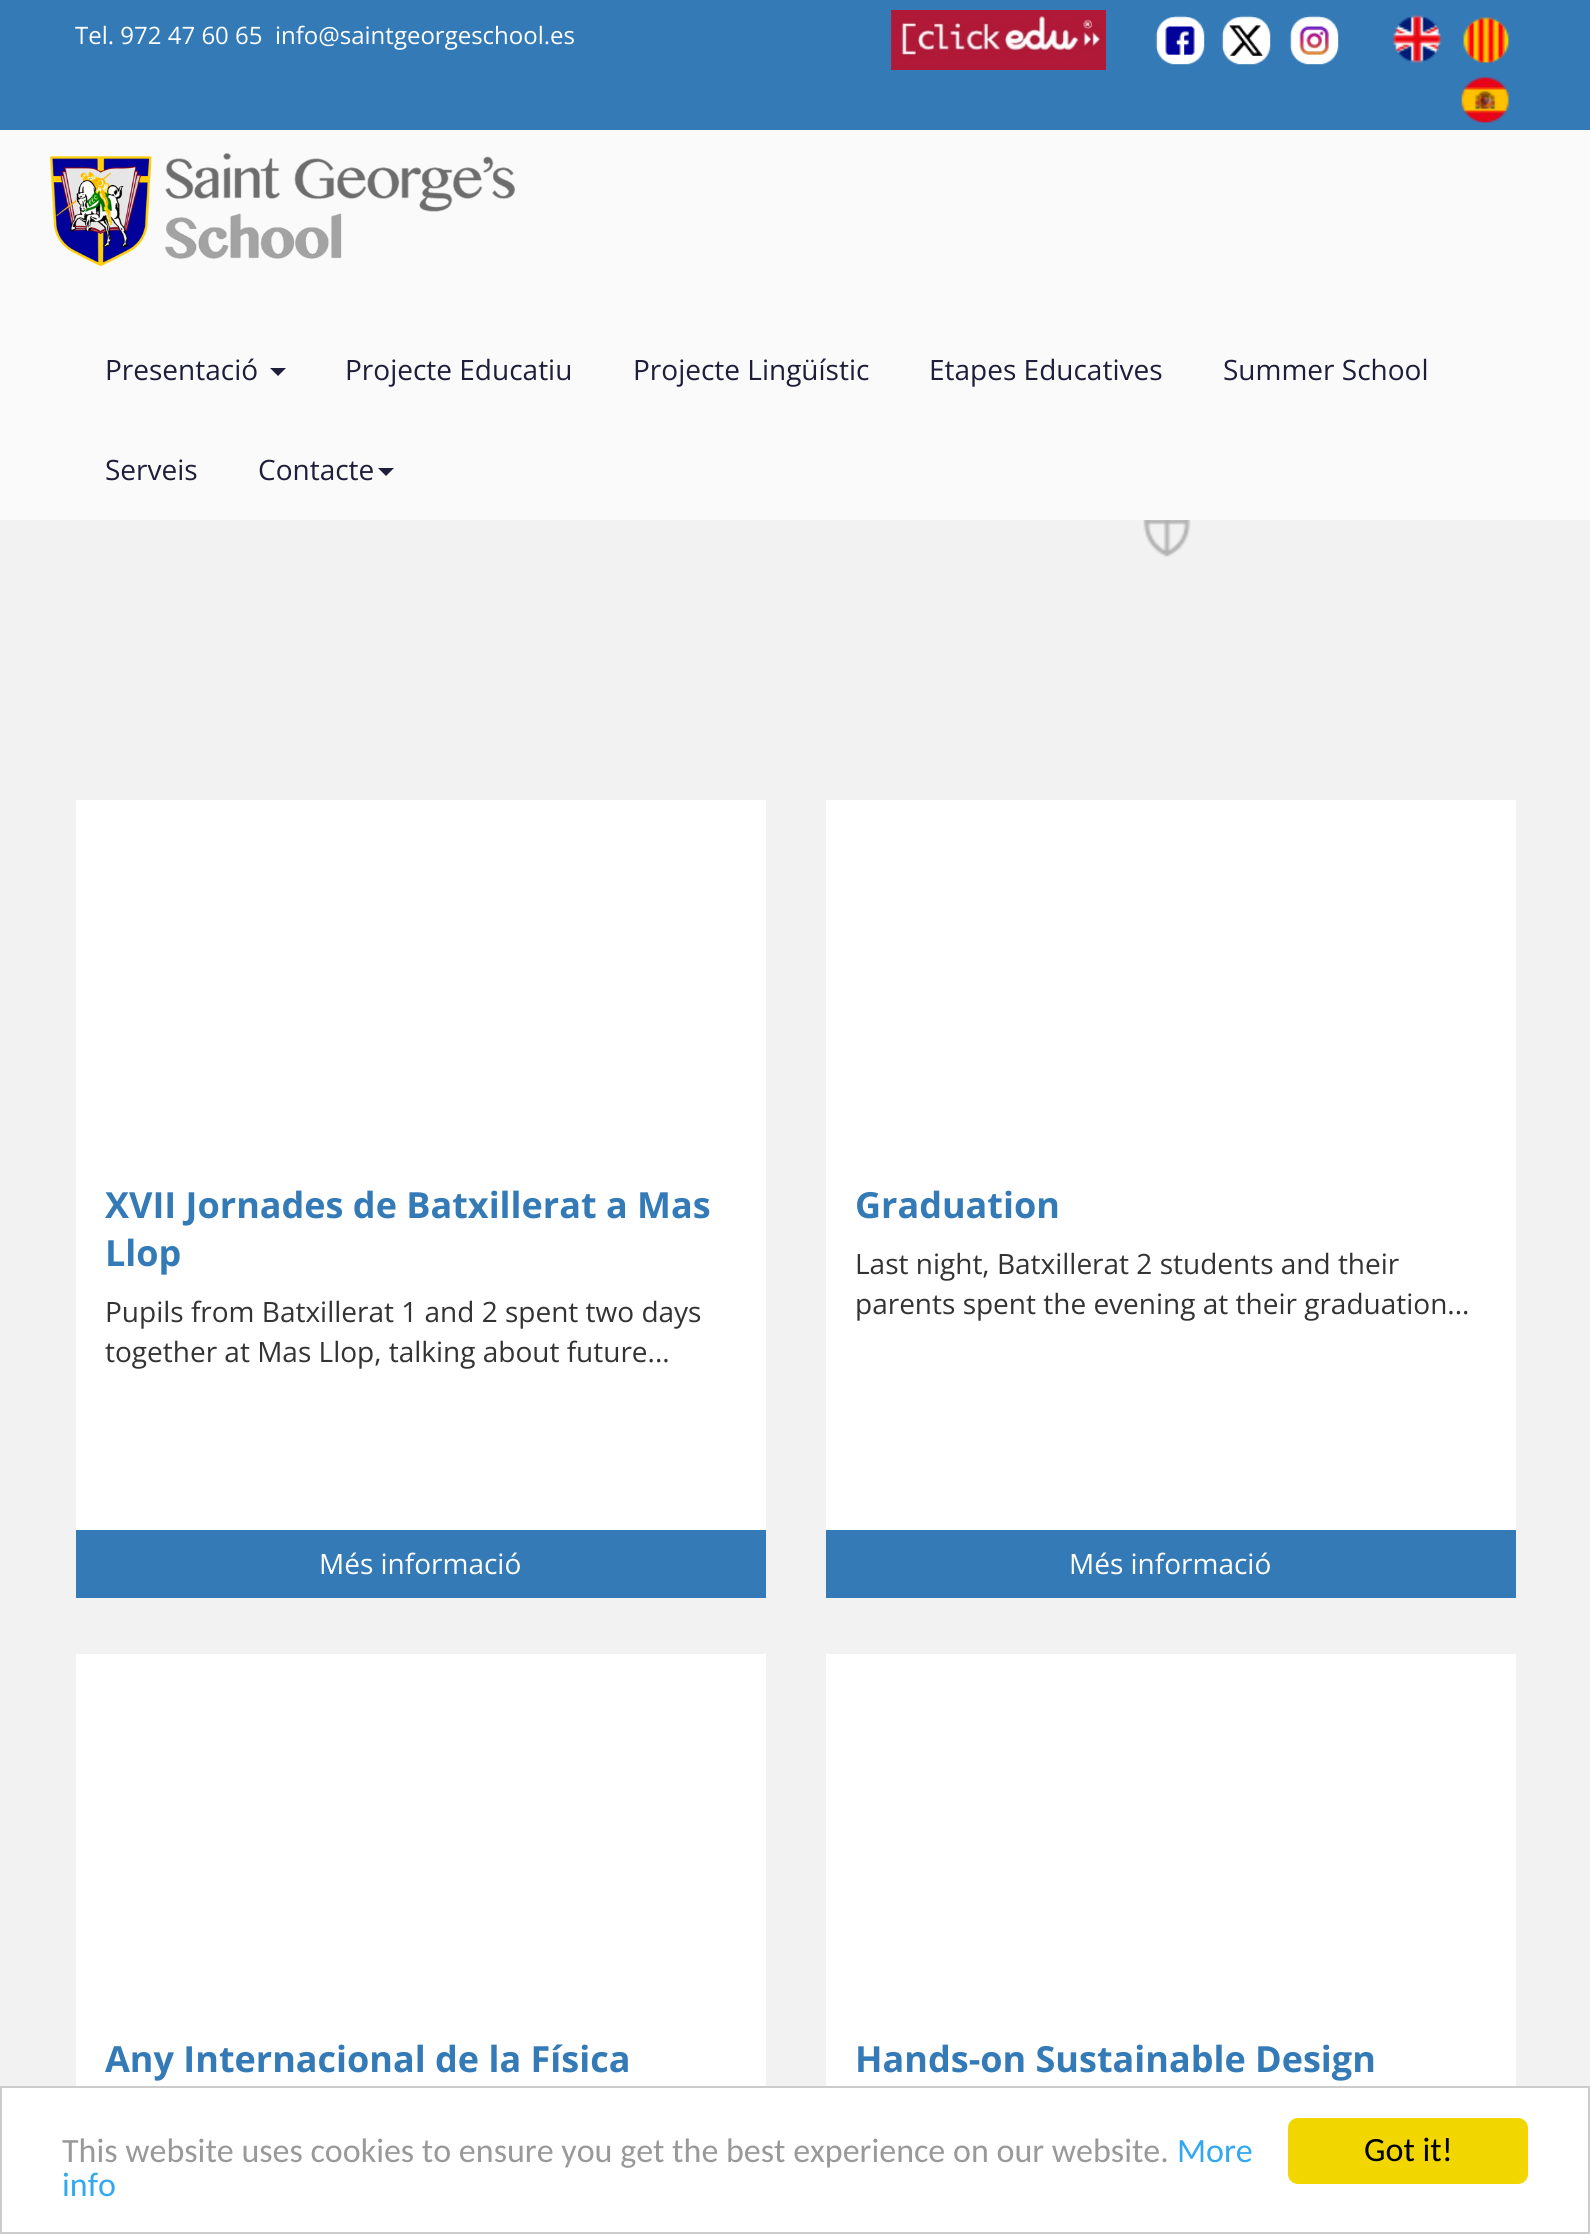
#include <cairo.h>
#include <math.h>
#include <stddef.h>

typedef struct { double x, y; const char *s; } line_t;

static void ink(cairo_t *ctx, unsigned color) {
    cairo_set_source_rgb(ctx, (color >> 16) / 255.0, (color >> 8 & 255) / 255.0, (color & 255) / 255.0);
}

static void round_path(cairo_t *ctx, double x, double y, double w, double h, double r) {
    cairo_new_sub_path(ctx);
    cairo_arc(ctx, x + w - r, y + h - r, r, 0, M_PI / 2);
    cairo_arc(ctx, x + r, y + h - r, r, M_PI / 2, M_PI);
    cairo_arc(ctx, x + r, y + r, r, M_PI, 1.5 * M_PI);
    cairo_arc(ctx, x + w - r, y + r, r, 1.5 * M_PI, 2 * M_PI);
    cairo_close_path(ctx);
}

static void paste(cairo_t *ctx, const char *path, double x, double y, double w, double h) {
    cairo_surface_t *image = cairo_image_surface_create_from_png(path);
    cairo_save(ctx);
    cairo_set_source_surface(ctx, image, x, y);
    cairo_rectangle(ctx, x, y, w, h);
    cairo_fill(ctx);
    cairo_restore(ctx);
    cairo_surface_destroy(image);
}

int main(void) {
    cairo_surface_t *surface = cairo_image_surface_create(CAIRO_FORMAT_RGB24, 1590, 2234);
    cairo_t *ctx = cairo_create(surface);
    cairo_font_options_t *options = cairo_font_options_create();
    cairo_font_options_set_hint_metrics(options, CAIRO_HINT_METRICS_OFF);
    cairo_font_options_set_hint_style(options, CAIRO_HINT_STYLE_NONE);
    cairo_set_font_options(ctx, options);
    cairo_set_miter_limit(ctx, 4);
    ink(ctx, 0xF2F2F2);
    cairo_paint(ctx);
    ink(ctx, 0xFAFAFA);
    cairo_rectangle(ctx, 0, 130, 1590, 390);
    cairo_fill(ctx);
    ink(ctx, 0x337AB7);
    cairo_rectangle(ctx, 0, 0, 1590, 130);
    cairo_fill(ctx);
    cairo_select_font_face(ctx, "Open Sans", CAIRO_FONT_SLANT_NORMAL, CAIRO_FONT_WEIGHT_NORMAL);
    cairo_set_font_size(ctx, 24);
    ink(ctx, 0xFFFFFF);
    cairo_move_to(ctx, 75, 44);
    cairo_show_text(ctx, "Tel. 972 47 60 65  info@saintgeorgeschool.es");
    paste(ctx, "media/1.png", 891, 10, 215, 60);
    paste(ctx, "media/2.png", 1155, 15, 50, 50);
    paste(ctx, "media/3.png", 1221, 15, 50, 50);
    paste(ctx, "media/4.png", 1289, 15, 50, 50);
    paste(ctx, "media/5.png", 1393, 15, 48, 48);
    paste(ctx, "media/6.png", 1463, 17, 46, 46);
    paste(ctx, "media/7.png", 1461, 77, 49, 46);
    paste(ctx, "media/8.png", 50, 153, 465, 113);
    cairo_set_font_size(ctx, 28);
    ink(ctx, 0x1E1E3B);
    cairo_move_to(ctx, 105, 380);
    cairo_show_text(ctx, "Presentació");
    cairo_new_path(ctx);
    cairo_move_to(ctx, 270, 368);
    cairo_line_to(ctx, 286, 368);
    cairo_line_to(ctx, 278, 376);
    cairo_close_path(ctx);
    cairo_fill(ctx);
    {
        static const line_t items[] = {
            {345, 380, "Projecte Educatiu"},
            {633, 380, "Projecte Lingüístic"},
            {929, 380, "Etapes Educatives"},
            {1223, 380, "Summer School"},
            {105, 480, "Serveis"},
            {258, 480, "Contacte"},
        };
        for (size_t i = 0; i < sizeof items / sizeof *items; i++) {
            cairo_move_to(ctx, items[i].x, items[i].y);
            cairo_show_text(ctx, items[i].s);
        }
    }
    cairo_new_path(ctx);
    cairo_move_to(ctx, 378, 468);
    cairo_line_to(ctx, 394, 468);
    cairo_line_to(ctx, 386, 476);
    cairo_close_path(ctx);
    cairo_fill(ctx);
    paste(ctx, "media/9.png", 1143, 520, 48, 37);
    ink(ctx, 0xFFFFFF);
    cairo_rectangle(ctx, 76, 800, 690, 730);
    cairo_fill(ctx);
    cairo_select_font_face(ctx, "Open Sans", CAIRO_FONT_SLANT_NORMAL, CAIRO_FONT_WEIGHT_BOLD);
    cairo_set_font_size(ctx, 36);
    ink(ctx, 0x337AB7);
    cairo_move_to(ctx, 105, 1218);
    cairo_show_text(ctx, "XVII Jornades de Batxillerat a Mas");
    cairo_move_to(ctx, 105, 1266);
    cairo_show_text(ctx, "Llop");
    cairo_select_font_face(ctx, "Open Sans", CAIRO_FONT_SLANT_NORMAL, CAIRO_FONT_WEIGHT_NORMAL);
    cairo_set_font_size(ctx, 28);
    ink(ctx, 0x333333);
    cairo_move_to(ctx, 105, 1322);
    cairo_show_text(ctx, "Pupils from Batxillerat 1 and 2 spent two days");
    cairo_move_to(ctx, 105, 1362);
    cairo_show_text(ctx, "together at Mas Llop, talking about future...");
    ink(ctx, 0x337AB7);
    cairo_rectangle(ctx, 76, 1530, 690, 68);
    cairo_fill(ctx);
    ink(ctx, 0xFFFFFF);
    cairo_move_to(ctx, 319, 1574);
    cairo_show_text(ctx, "Més informació");
    cairo_rectangle(ctx, 826, 800, 690, 730);
    cairo_fill(ctx);
    cairo_select_font_face(ctx, "Open Sans", CAIRO_FONT_SLANT_NORMAL, CAIRO_FONT_WEIGHT_BOLD);
    cairo_set_font_size(ctx, 36);
    ink(ctx, 0x337AB7);
    cairo_move_to(ctx, 855, 1218);
    cairo_show_text(ctx, "Graduation");
    cairo_select_font_face(ctx, "Open Sans", CAIRO_FONT_SLANT_NORMAL, CAIRO_FONT_WEIGHT_NORMAL);
    cairo_set_font_size(ctx, 28);
    ink(ctx, 0x333333);
    cairo_move_to(ctx, 855, 1274);
    cairo_show_text(ctx, "Last night, Batxillerat 2 students and their");
    cairo_move_to(ctx, 855, 1314);
    cairo_show_text(ctx, "parents spent the evening at their graduation...");
    ink(ctx, 0x337AB7);
    cairo_rectangle(ctx, 826, 1530, 690, 68);
    cairo_fill(ctx);
    ink(ctx, 0xFFFFFF);
    cairo_move_to(ctx, 1069, 1574);
    cairo_show_text(ctx, "Més informació");
    cairo_rectangle(ctx, 76, 1654, 690, 432);
    cairo_fill(ctx);
    cairo_select_font_face(ctx, "Open Sans", CAIRO_FONT_SLANT_NORMAL, CAIRO_FONT_WEIGHT_BOLD);
    cairo_set_font_size(ctx, 36);
    ink(ctx, 0x337AB7);
    cairo_move_to(ctx, 105, 2072);
    cairo_show_text(ctx, "Any Internacional de la Física");
    ink(ctx, 0xFFFFFF);
    cairo_rectangle(ctx, 826, 1654, 690, 432);
    cairo_fill(ctx);
    ink(ctx, 0x337AB7);
    cairo_move_to(ctx, 855, 2072);
    cairo_show_text(ctx, "Hands-on Sustainable Design");
    ink(ctx, 0xFFFFFF);
    cairo_rectangle(ctx, 1, 2087, 1588, 146);
    cairo_fill_preserve(ctx);
    ink(ctx, 0xCCCCCC);
    cairo_stroke(ctx);
    cairo_select_font_face(ctx, "Carlito", CAIRO_FONT_SLANT_NORMAL, CAIRO_FONT_WEIGHT_NORMAL);
    cairo_set_font_size(ctx, 34);
    ink(ctx, 0x999999);
    cairo_move_to(ctx, 62, 2162);
    cairo_show_text(ctx, "This website uses cookies to ensure you get the best experience on our website.");
    ink(ctx, 0x31A8F0);
    cairo_move_to(ctx, 1177, 2162);
    cairo_show_text(ctx, "More");
    cairo_move_to(ctx, 62, 2196);
    cairo_show_text(ctx, "info");
    ink(ctx, 0xF1D600);
    round_path(ctx, 1288, 2118, 240, 66, 10);
    cairo_fill(ctx);
    ink(ctx, 0x000000);
    cairo_move_to(ctx, 1364, 2161);
    cairo_show_text(ctx, "Got it!");
    cairo_surface_write_to_png(surface, "image.png");
    cairo_font_options_destroy(options);
    cairo_destroy(ctx);
    cairo_surface_destroy(surface);
    return 0;
}
